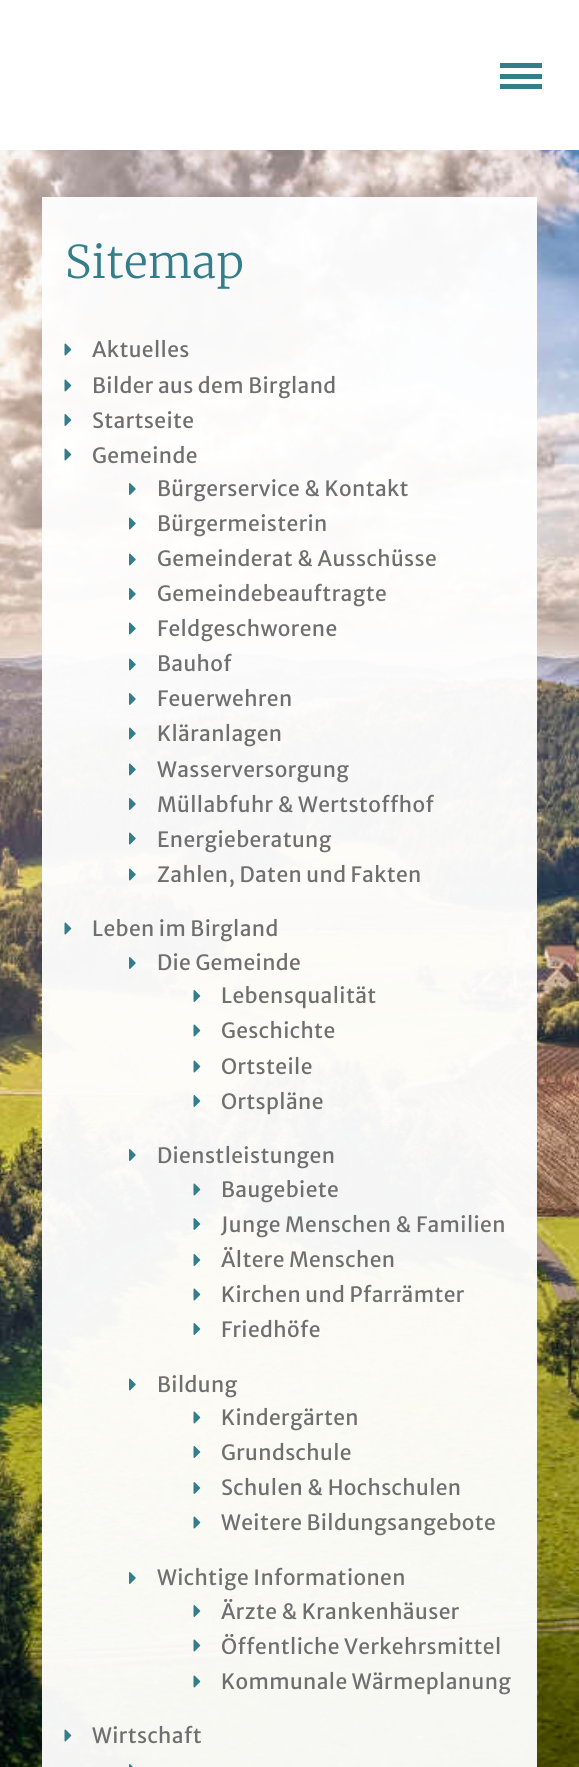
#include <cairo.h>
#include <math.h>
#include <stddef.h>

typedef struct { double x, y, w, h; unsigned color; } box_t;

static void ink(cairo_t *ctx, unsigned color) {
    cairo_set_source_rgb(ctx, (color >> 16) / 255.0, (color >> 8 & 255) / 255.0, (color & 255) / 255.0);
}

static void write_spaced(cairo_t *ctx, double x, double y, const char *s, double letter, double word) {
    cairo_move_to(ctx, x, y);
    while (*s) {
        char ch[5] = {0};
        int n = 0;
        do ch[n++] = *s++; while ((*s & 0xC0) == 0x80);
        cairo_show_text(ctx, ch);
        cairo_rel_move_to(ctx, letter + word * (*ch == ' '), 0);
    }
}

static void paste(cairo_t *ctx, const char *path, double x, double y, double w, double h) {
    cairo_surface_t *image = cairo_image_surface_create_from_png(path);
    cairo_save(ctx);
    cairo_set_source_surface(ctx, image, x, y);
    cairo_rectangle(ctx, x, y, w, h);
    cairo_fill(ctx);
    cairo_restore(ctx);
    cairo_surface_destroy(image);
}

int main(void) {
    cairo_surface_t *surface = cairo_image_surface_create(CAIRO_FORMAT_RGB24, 579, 1767);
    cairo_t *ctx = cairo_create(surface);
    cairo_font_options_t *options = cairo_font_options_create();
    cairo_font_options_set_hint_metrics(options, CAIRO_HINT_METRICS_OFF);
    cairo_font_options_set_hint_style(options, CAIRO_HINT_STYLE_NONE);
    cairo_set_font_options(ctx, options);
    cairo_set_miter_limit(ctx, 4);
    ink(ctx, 0xFFFFFF);
    cairo_paint(ctx);
    {
        static const box_t items[] = {
            {500, 74, 42, 5, 0x347E8C},
            {500, 63, 42, 5, 0x347E8C},
            {500, 84, 42, 5, 0x347E8C},
        };
        for (size_t i = 0; i < sizeof items / sizeof *items; i++) {
            ink(ctx, items[i].color);
            cairo_rectangle(ctx, items[i].x, items[i].y, items[i].w, items[i].h);
            cairo_fill(ctx);
        }
    }
    paste(ctx, "media/1.png", 0, 150, 579, 1617);
    cairo_set_source_rgba(ctx, 1, 1, 1, 0.95);
    cairo_rectangle(ctx, 42, 197, 495, 1570);
    cairo_fill(ctx);
    cairo_select_font_face(ctx, "Merriweather Light", CAIRO_FONT_SLANT_NORMAL, CAIRO_FONT_WEIGHT_NORMAL);
    cairo_set_font_size(ctx, 45);
    ink(ctx, 0x347E8C);
    write_spaced(ctx, 65, 278, "Sitemap", 1, 0);
    paste(ctx, "media/2.png", 64, 343, 8, 13);
    cairo_select_font_face(ctx, "Merriweather Sans", CAIRO_FONT_SLANT_NORMAL, CAIRO_FONT_WEIGHT_NORMAL);
    cairo_set_font_size(ctx, 21);
    ink(ctx, 0x6F6F6F);
    write_spaced(ctx, 92, 357, "Aktuelles", 0.4, 0);
    paste(ctx, "media/3.png", 64, 379, 8, 13);
    write_spaced(ctx, 92, 393, "Bilder aus dem Birgland", 0.4, 0);
    paste(ctx, "media/4.png", 64, 414, 8, 12);
    write_spaced(ctx, 92, 428, "Startseite", 0.4, 0);
    paste(ctx, "media/5.png", 64, 448, 8, 13);
    write_spaced(ctx, 92, 463, "Gemeinde", 0.4, 0);
    paste(ctx, "media/6.png", 129, 483, 7, 12);
    write_spaced(ctx, 157, 496, "Bürgerservice & Kontakt", 0.4, 0);
    paste(ctx, "media/7.png", 129, 517, 7, 13);
    write_spaced(ctx, 157, 531, "Bürgermeisterin", 0.4, 0);
    paste(ctx, "media/8.png", 129, 553, 7, 13);
    write_spaced(ctx, 157, 566, "Gemeinderat & Ausschüsse", 0.4, 0);
    paste(ctx, "media/9.png", 129, 588, 7, 12);
    write_spaced(ctx, 157, 601, "Gemeindebeauftragte", 0.4, 0);
    paste(ctx, "media/10.png", 129, 622, 7, 13);
    write_spaced(ctx, 157, 636, "Feldgeschworene", 0.4, 0);
    paste(ctx, "media/11.png", 129, 658, 7, 13);
    write_spaced(ctx, 157, 671, "Bauhof", 0.4, 0);
    paste(ctx, "media/12.png", 129, 693, 7, 12);
    write_spaced(ctx, 157, 706, "Feuerwehren", 0.4, 0);
    paste(ctx, "media/13.png", 129, 727, 7, 13);
    write_spaced(ctx, 157, 741, "Kläranlagen", 0.4, 0);
    paste(ctx, "media/14.png", 129, 763, 7, 13);
    write_spaced(ctx, 157, 777, "Wasserversorgung", 0.4, 0);
    paste(ctx, "media/15.png", 129, 798, 7, 12);
    write_spaced(ctx, 157, 812, "Müllabfuhr & Wertstoffhof", 0.4, 0);
    paste(ctx, "media/16.png", 129, 832, 7, 13);
    write_spaced(ctx, 157, 847, "Energieberatung", 0.4, 0);
    paste(ctx, "media/17.png", 129, 868, 7, 13);
    write_spaced(ctx, 157, 882, "Zahlen, Daten und Fakten", 0.4, 0);
    paste(ctx, "media/18.png", 64, 922, 8, 13);
    write_spaced(ctx, 92, 936, "Leben im Birgland", 0.4, 0);
    paste(ctx, "media/19.png", 129, 957, 7, 12);
    write_spaced(ctx, 157, 970, "Die Gemeinde", 0.4, 0);
    paste(ctx, "media/20.png", 193, 990, 8, 12);
    write_spaced(ctx, 221, 1003, "Lebensqualität", 0.4, 0);
    paste(ctx, "media/21.png", 193, 1024, 8, 13);
    write_spaced(ctx, 221, 1038, "Geschichte", 0.4, 0);
    paste(ctx, "media/22.png", 193, 1060, 8, 13);
    write_spaced(ctx, 221, 1074, "Ortsteile", 0.4, 0);
    paste(ctx, "media/23.png", 193, 1095, 8, 12);
    write_spaced(ctx, 221, 1109, "Ortspläne", 0.4, 0);
    paste(ctx, "media/24.png", 129, 1149, 7, 12);
    write_spaced(ctx, 157, 1163, "Dienstleistungen", 0.4, 0);
    paste(ctx, "media/25.png", 193, 1183, 8, 13);
    write_spaced(ctx, 221, 1197, "Baugebiete", 0.4, 0);
    paste(ctx, "media/26.png", 193, 1218, 8, 12);
    write_spaced(ctx, 221, 1232, "Junge Menschen & Familien", 0.4, 0);
    paste(ctx, "media/27.png", 193, 1254, 8, 12);
    write_spaced(ctx, 221, 1267, "Ältere Menschen", 0.4, 0);
    paste(ctx, "media/28.png", 193, 1288, 8, 13);
    write_spaced(ctx, 221, 1302, "Kirchen und Pfarrämter", 0.4, 0);
    paste(ctx, "media/29.png", 193, 1323, 8, 12);
    write_spaced(ctx, 221, 1337, "Friedhöfe", 0.4, 0);
    paste(ctx, "media/30.png", 129, 1378, 7, 13);
    write_spaced(ctx, 157, 1392, "Bildung", 0.4, 0);
    paste(ctx, "media/31.png", 193, 1411, 8, 13);
    write_spaced(ctx, 221, 1425, "Kindergärten", 0.4, 0);
    paste(ctx, "media/32.png", 193, 1446, 8, 12);
    write_spaced(ctx, 221, 1460, "Grundschule", 0.4, 0);
    paste(ctx, "media/33.png", 193, 1482, 8, 12);
    write_spaced(ctx, 221, 1495, "Schulen & Hochschulen", 0.4, 0);
    paste(ctx, "media/34.png", 193, 1516, 8, 13);
    write_spaced(ctx, 221, 1530, "Weitere Bildungsangebote", 0.4, 0);
    paste(ctx, "media/35.png", 129, 1572, 7, 12);
    write_spaced(ctx, 157, 1585, "Wichtige Informationen", 0.4, 0);
    paste(ctx, "media/36.png", 193, 1605, 8, 12);
    write_spaced(ctx, 221, 1619, "Ärzte & Krankenhäuser", 0.4, 0);
    paste(ctx, "media/37.png", 193, 1639, 8, 13);
    write_spaced(ctx, 221, 1654, "Öffentliche Verkehrsmittel", 0.4, 0);
    paste(ctx, "media/38.png", 193, 1675, 8, 13);
    write_spaced(ctx, 221, 1689, "Kommunale Wärmeplanung", 0.4, 0);
    paste(ctx, "media/39.png", 64, 1729, 8, 13);
    write_spaced(ctx, 92, 1743, "Wirtschaft", 0.4, 0);
    paste(ctx, "media/40.png", 129, 1764, 4, 3);
    cairo_surface_write_to_png(surface, "image.png");
    cairo_font_options_destroy(options);
    cairo_destroy(ctx);
    cairo_surface_destroy(surface);
    return 0;
}
